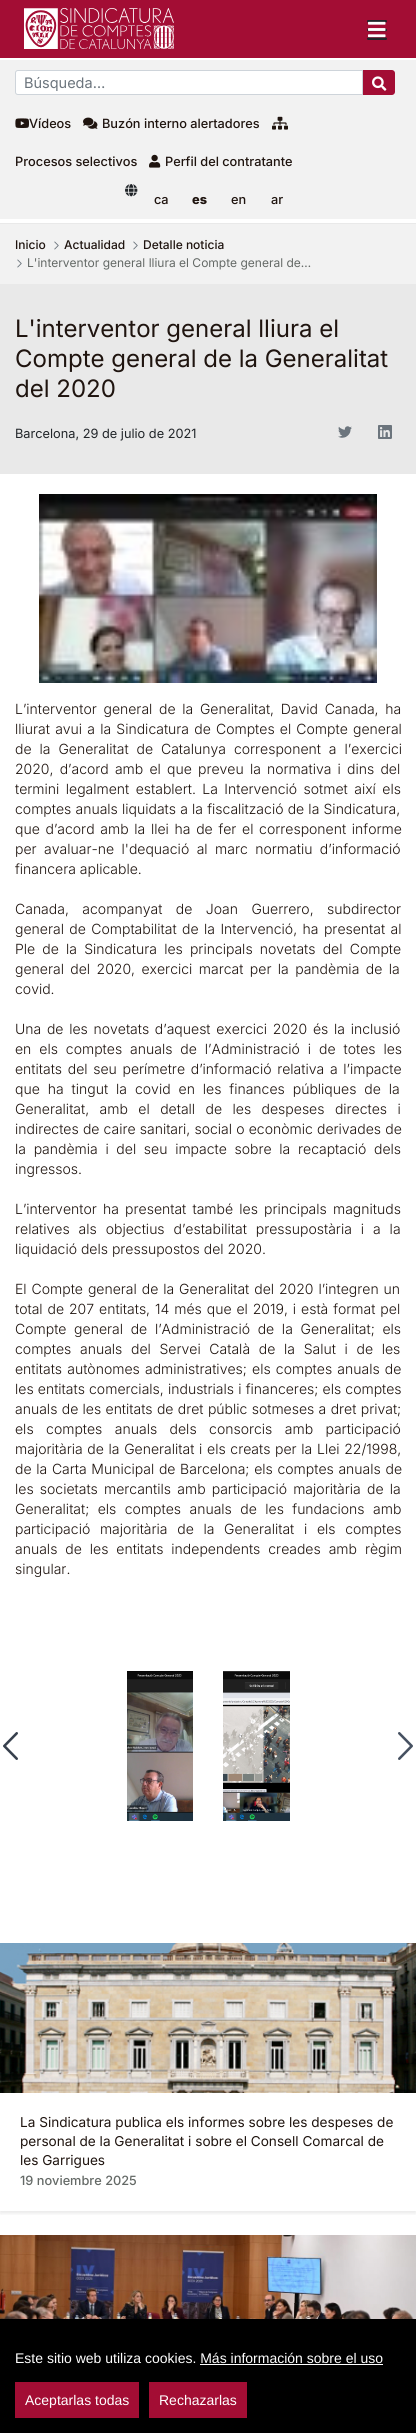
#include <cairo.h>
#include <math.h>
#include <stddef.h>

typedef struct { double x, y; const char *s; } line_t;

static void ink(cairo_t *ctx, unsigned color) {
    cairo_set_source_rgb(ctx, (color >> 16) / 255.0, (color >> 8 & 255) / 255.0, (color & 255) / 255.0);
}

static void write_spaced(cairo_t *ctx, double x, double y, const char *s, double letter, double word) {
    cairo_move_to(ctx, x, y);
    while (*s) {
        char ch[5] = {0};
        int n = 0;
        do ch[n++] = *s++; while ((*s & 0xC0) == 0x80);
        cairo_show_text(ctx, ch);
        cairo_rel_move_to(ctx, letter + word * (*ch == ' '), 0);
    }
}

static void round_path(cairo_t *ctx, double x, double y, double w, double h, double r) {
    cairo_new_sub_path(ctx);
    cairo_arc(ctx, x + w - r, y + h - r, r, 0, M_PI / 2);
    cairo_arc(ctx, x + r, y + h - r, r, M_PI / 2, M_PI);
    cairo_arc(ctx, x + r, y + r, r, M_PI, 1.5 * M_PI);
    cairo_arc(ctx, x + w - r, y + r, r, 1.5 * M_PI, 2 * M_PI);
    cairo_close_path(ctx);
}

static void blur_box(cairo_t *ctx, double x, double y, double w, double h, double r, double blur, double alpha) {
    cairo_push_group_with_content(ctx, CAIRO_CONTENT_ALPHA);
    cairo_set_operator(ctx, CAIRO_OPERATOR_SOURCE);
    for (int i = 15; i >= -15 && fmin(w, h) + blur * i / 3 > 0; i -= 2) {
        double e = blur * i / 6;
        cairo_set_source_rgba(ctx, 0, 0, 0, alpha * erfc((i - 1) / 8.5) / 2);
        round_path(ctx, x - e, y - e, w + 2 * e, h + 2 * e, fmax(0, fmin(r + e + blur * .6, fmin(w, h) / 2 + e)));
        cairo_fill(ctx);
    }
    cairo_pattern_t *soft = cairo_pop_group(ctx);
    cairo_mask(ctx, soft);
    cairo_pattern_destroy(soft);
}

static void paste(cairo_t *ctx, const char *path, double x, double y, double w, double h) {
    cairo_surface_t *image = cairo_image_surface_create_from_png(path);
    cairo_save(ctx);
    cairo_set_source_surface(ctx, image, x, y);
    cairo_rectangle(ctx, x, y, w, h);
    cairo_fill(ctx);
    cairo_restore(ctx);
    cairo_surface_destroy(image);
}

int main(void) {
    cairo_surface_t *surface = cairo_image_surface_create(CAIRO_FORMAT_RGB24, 416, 2433);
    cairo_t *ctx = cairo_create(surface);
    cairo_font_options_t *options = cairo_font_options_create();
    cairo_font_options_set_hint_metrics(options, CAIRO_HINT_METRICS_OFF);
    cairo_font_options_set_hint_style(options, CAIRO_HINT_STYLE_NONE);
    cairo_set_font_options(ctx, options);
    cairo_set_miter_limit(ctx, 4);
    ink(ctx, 0xFFFFFF);
    cairo_paint(ctx);
    ink(ctx, 0xA30D34);
    cairo_rectangle(ctx, 0, 0, 416, 58);
    cairo_fill(ctx);
    paste(ctx, "media/1.png", 24, 8, 150, 41);
    paste(ctx, "media/2.png", 367, 20, 20, 20);
    paste(ctx, "media/3.png", 368, 21, 18, 17);
    ink(ctx, 0xF2F2F2);
    cairo_rectangle(ctx, 0, 60, 416, 159);
    cairo_fill(ctx);
    ink(ctx, 0xFFFFFF);
    cairo_new_path(ctx);
    cairo_move_to(ctx, 18, 70.5);
    cairo_line_to(ctx, 362.5, 70.5);
    cairo_line_to(ctx, 362.5, 94.5);
    cairo_line_to(ctx, 18, 94.5);
    cairo_curve_to(ctx, 16.5, 94.5, 15.5, 93.5, 15.5, 92);
    cairo_line_to(ctx, 15.5, 73);
    cairo_curve_to(ctx, 15.5, 71.5, 16.5, 70.5, 18, 70.5);
    cairo_close_path(ctx);
    cairo_fill_preserve(ctx);
    ink(ctx, 0xCED4DA);
    cairo_set_line_width(ctx, 1);
    cairo_stroke(ctx);
    cairo_select_font_face(ctx, "Inter", CAIRO_FONT_SLANT_NORMAL, CAIRO_FONT_WEIGHT_NORMAL);
    cairo_set_font_size(ctx, 14.5);
    ink(ctx, 0x6C757D);
    cairo_move_to(ctx, 24, 88);
    cairo_show_text(ctx, "Búsqueda…");
    ink(ctx, 0xA30D34);
    cairo_new_path(ctx);
    cairo_move_to(ctx, 363, 70);
    cairo_line_to(ctx, 392, 70);
    cairo_curve_to(ctx, 393.5, 70, 395, 71.5, 395, 73);
    cairo_line_to(ctx, 395, 92);
    cairo_curve_to(ctx, 395, 93.5, 393.5, 95, 392, 95);
    cairo_line_to(ctx, 363, 95);
    cairo_close_path(ctx);
    cairo_fill(ctx);
    paste(ctx, "media/4.png", 372, 76, 15, 15);
    paste(ctx, "media/5.png", 15, 118, 14, 10);
    cairo_select_font_face(ctx, "Inter Medium", CAIRO_FONT_SLANT_NORMAL, CAIRO_FONT_WEIGHT_NORMAL);
    cairo_set_font_size(ctx, 12.75);
    ink(ctx, 0x1F140F);
    cairo_move_to(ctx, 29, 128);
    cairo_show_text(ctx, "Vídeos");
    paste(ctx, "media/6.png", 83, 117, 15, 12);
    cairo_move_to(ctx, 102, 128);
    cairo_show_text(ctx, "Buzón interno alertadores");
    paste(ctx, "media/7.png", 272, 116, 16, 14);
    cairo_move_to(ctx, 15, 166);
    cairo_show_text(ctx, "Procesos selectivos");
    paste(ctx, "media/8.png", 149, 154, 12, 14);
    cairo_move_to(ctx, 165, 166);
    cairo_show_text(ctx, "Perfil del contratante");
    paste(ctx, "media/9.png", 125, 184, 13, 13);
    cairo_move_to(ctx, 154, 204);
    cairo_show_text(ctx, "ca");
    cairo_select_font_face(ctx, "Inter ExtraBold", CAIRO_FONT_SLANT_NORMAL, CAIRO_FONT_WEIGHT_NORMAL);
    cairo_move_to(ctx, 192, 204);
    cairo_show_text(ctx, "es");
    cairo_select_font_face(ctx, "Inter Medium", CAIRO_FONT_SLANT_NORMAL, CAIRO_FONT_WEIGHT_NORMAL);
    cairo_move_to(ctx, 231, 204);
    cairo_show_text(ctx, "en");
    cairo_move_to(ctx, 271, 204);
    cairo_show_text(ctx, "ar");
    ink(ctx, 0xF2F2F2);
    cairo_rectangle(ctx, 0, 224, 416, 60);
    cairo_fill(ctx);
    ink(ctx, 0xE9E9E9);
    cairo_rectangle(ctx, 0, 223, 416, 1);
    cairo_fill(ctx);
    cairo_set_font_size(ctx, 12);
    ink(ctx, 0x1F140F);
    cairo_move_to(ctx, 15, 249);
    cairo_show_text(ctx, "Inicio");
    paste(ctx, "media/10.png", 54, 241, 5, 9);
    cairo_move_to(ctx, 64, 249);
    cairo_show_text(ctx, "Actualidad");
    paste(ctx, "media/10.png", 133, 241, 5, 9);
    cairo_move_to(ctx, 143, 249);
    cairo_show_text(ctx, "Detalle noticia");
    paste(ctx, "media/10.png", 17, 259, 5, 9);
    cairo_select_font_face(ctx, "Inter", CAIRO_FONT_SLANT_NORMAL, CAIRO_FONT_WEIGHT_NORMAL);
    ink(ctx, 0x646966);
    cairo_move_to(ctx, 27, 267);
    cairo_show_text(ctx, "L'interventor general lliura el Compte general de…");
    ink(ctx, 0xE9E9E9);
    cairo_rectangle(ctx, 0, 284, 416, 190);
    cairo_fill(ctx);
    cairo_set_font_size(ctx, 24);
    ink(ctx, 0x1F140F);
    {
        static const line_t items[] = {
            {15, 337, "L'interventor general lliura el"},
            {15, 367, "Compte general de la Generalitat"},
            {15, 397, "del 2020"},
        };
        for (size_t i = 0; i < sizeof items / sizeof *items; i++) {
            cairo_move_to(ctx, items[i].x, items[i].y);
            cairo_show_text(ctx, items[i].s);
        }
    }
    cairo_set_font_size(ctx, 12.75);
    ink(ctx, 0x212529);
    cairo_move_to(ctx, 15, 438);
    cairo_show_text(ctx, "Barcelona, 29 de julio de 2021");
    paste(ctx, "media/11.png", 338, 426, 14, 12);
    paste(ctx, "media/12.png", 378, 425, 14, 14);
    paste(ctx, "media/13.png", 39, 494, 338, 189);
    cairo_select_font_face(ctx, "Inter Light", CAIRO_FONT_SLANT_NORMAL, CAIRO_FONT_WEIGHT_NORMAL);
    cairo_set_font_size(ctx, 14);
    ink(ctx, 0x1F140F);
    write_spaced(ctx, 15, 714, "L’interventor general de la Generalitat, David Canada, ha", 0, 2.75);
    write_spaced(ctx, 15, 734, "lliurat avui a la Sindicatura de Comptes el Compte general", 0, 1.25);
    write_spaced(ctx, 15, 754, "de la Generalitat de Catalunya corresponent a l’exercici", 0, 4);
    write_spaced(ctx, 15, 774, "2020, d’acord amb el que preveu la normativa i dins del", 0, 2.25);
    write_spaced(ctx, 15, 794, "termini legalment establert. La Intervenció sotmet així els", 0, 2.5);
    write_spaced(ctx, 15, 814, "comptes anuals liquidats a la fiscalització de la Sindicatura,", 0, 0.25);
    write_spaced(ctx, 15, 834, "que d’acord amb la llei ha de fer el corresponent informe", 0, 1.75);
    write_spaced(ctx, 15, 854, "per avaluar-ne l'dequació al marc normatiu d’informació", 0, 3.5);
    cairo_move_to(ctx, 15, 874);
    cairo_show_text(ctx, "financera aplicable.");
    write_spaced(ctx, 15, 914, "Canada, acompanyat de Joan Guerrero, subdirector", 0, 9.5);
    write_spaced(ctx, 15, 934, "general de Comptabilitat de la Intervenció, ha presentat al", 0, 1.5);
    write_spaced(ctx, 15, 954, "Ple de la Sindicatura les principals novetats del Compte", 0, 3.25);
    write_spaced(ctx, 15, 974, "general del 2020, exercici marcat per la pandèmia de la", 0, 2.5);
    cairo_move_to(ctx, 15, 994);
    cairo_show_text(ctx, "covid.");
    write_spaced(ctx, 15, 1034, "Una de les novetats d’aquest exercici 2020 és la inclusió", 0, 1.75);
    write_spaced(ctx, 15, 1054, "en els comptes anuals de l’Administració i de totes les", 0, 4);
    write_spaced(ctx, 15, 1074, "entitats del seu perímetre d’informació relativa a l’impacte", 0, 1.75);
    write_spaced(ctx, 15, 1094, "que ha tingut la covid en les finances públiques de la", 0, 4);
    write_spaced(ctx, 15, 1114, "Generalitat, amb el detall de les despeses directes i", 0, 6.5);
    write_spaced(ctx, 15, 1134, "indirectes de caire sanitari, social o econòmic derivades de", 0, 0.25);
    write_spaced(ctx, 15, 1154, "la pandèmia i del seu impacte sobre la recaptació dels", 0, 3.75);
    cairo_move_to(ctx, 15, 1174);
    cairo_show_text(ctx, "ingressos.");
    write_spaced(ctx, 15, 1214, "L’interventor ha presentat també les principals magnituds", 0, 2.25);
    write_spaced(ctx, 15, 1234, "relatives als objectius d’estabilitat pressupostària i a la", 0, 5);
    cairo_move_to(ctx, 15, 1254);
    cairo_show_text(ctx, "liquidació dels pressupostos del 2020.");
    write_spaced(ctx, 15, 1294, "El Compte general de la Generalitat del 2020 l’integren un", 0, 1);
    write_spaced(ctx, 15, 1314, "total de 207 entitats, 14 més que el 2019, i està format pel", 0, 1);
    write_spaced(ctx, 15, 1334, "Compte general de l’Administració de la Generalitat; els", 0, 3.75);
    write_spaced(ctx, 15, 1354, "comptes anuals del Servei Català de la Salut i de les", 0, 4.75);
    write_spaced(ctx, 15, 1374, "entitats autònomes administratives; els comptes anuals de", 0, 1.25);
    write_spaced(ctx, 15, 1394, "les entitats comercials, industrials i financeres; els comptes", 0, 0.25);
    write_spaced(ctx, 15, 1414, "anuals de les entitats de dret públic sotmeses a dret privat;", 0, 0.4);
    write_spaced(ctx, 15, 1434, "els comptes anuals dels consorcis amb participació", 0, 8.5);
    write_spaced(ctx, 15, 1454, "majoritària de la Generalitat i els creats per la Llei 22/1998,", 0, 0.75);
    write_spaced(ctx, 15, 1474, "de la Carta Municipal de Barcelona; els comptes anuals de", 0, 0.75);
    write_spaced(ctx, 15, 1494, "les societats mercantils amb participació majoritària de la", 0, 2.25);
    write_spaced(ctx, 15, 1514, "Generalitat; els comptes anuals de les fundacions amb", 0, 4.5);
    write_spaced(ctx, 15, 1534, "participació majoritària de la Generalitat i els comptes", 0, 5.75);
    write_spaced(ctx, 15, 1554, "anuals de les entitats independents creades amb règim", 0, 4);
    cairo_move_to(ctx, 15, 1574);
    cairo_show_text(ctx, "singular.");
    paste(ctx, "media/14.png", 127, 1671, 66, 150);
    paste(ctx, "media/15.png", 223, 1671, 67, 150);
    paste(ctx, "media/16.png", 3, 1732, 15, 28);
    paste(ctx, "media/17.png", 398, 1732, 15, 28);
    cairo_save(ctx);
    cairo_rectangle(ctx, 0, 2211, 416, 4);
    cairo_clip(ctx);
    ink(ctx, 0x000000);
    blur_box(ctx, 0, 1945, 416, 268, 0, 2.5, 0.1);
    cairo_restore(ctx);
    paste(ctx, "media/18.png", 0, 1943, 416, 150);
    cairo_select_font_face(ctx, "Inter", CAIRO_FONT_SLANT_NORMAL, CAIRO_FONT_WEIGHT_NORMAL);
    cairo_set_font_size(ctx, 13.6);
    {
        static const line_t items[] = {
            {20, 2127, "La Sindicatura publica els informes sobre les despeses de"},
            {20, 2146, "personal de la Generalitat i sobre el Consell Comarcal de"},
            {20, 2165, "les Garrigues"},
        };
        for (size_t i = 0; i < sizeof items / sizeof *items; i++) {
            cairo_move_to(ctx, items[i].x, items[i].y);
            cairo_show_text(ctx, items[i].s);
        }
    }
    cairo_select_font_face(ctx, "Inter Medium", CAIRO_FONT_SLANT_NORMAL, CAIRO_FONT_WEIGHT_NORMAL);
    cairo_set_font_size(ctx, 12.75);
    ink(ctx, 0x646966);
    cairo_move_to(ctx, 20, 2185);
    cairo_show_text(ctx, "19 noviembre 2025");
    paste(ctx, "media/19.png", 0, 2235, 416, 84);
    ink(ctx, 0x000000);
    cairo_rectangle(ctx, 0, 2319, 416, 114);
    cairo_fill(ctx);
    cairo_select_font_face(ctx, "Liberation Sans", CAIRO_FONT_SLANT_NORMAL, CAIRO_FONT_WEIGHT_NORMAL);
    cairo_set_font_size(ctx, 14);
    ink(ctx, 0xFFFFFF);
    cairo_move_to(ctx, 15, 2363);
    cairo_show_text(ctx, "Este sitio web utiliza cookies. Más información sobre el uso");
    cairo_rectangle(ctx, 200, 2364, 183, 1);
    cairo_fill(ctx);
    ink(ctx, 0xA30D34);
    cairo_rectangle(ctx, 15, 2382, 124, 36);
    cairo_fill(ctx);
    ink(ctx, 0xFFFFFF);
    cairo_move_to(ctx, 25, 2405);
    cairo_show_text(ctx, "Aceptarlas todas");
    ink(ctx, 0xA30D34);
    cairo_rectangle(ctx, 149, 2382, 98, 36);
    cairo_fill(ctx);
    ink(ctx, 0xFFFFFF);
    cairo_move_to(ctx, 159, 2405);
    cairo_show_text(ctx, "Rechazarlas");
    cairo_surface_write_to_png(surface, "image.png");
    cairo_font_options_destroy(options);
    cairo_destroy(ctx);
    cairo_surface_destroy(surface);
    return 0;
}
